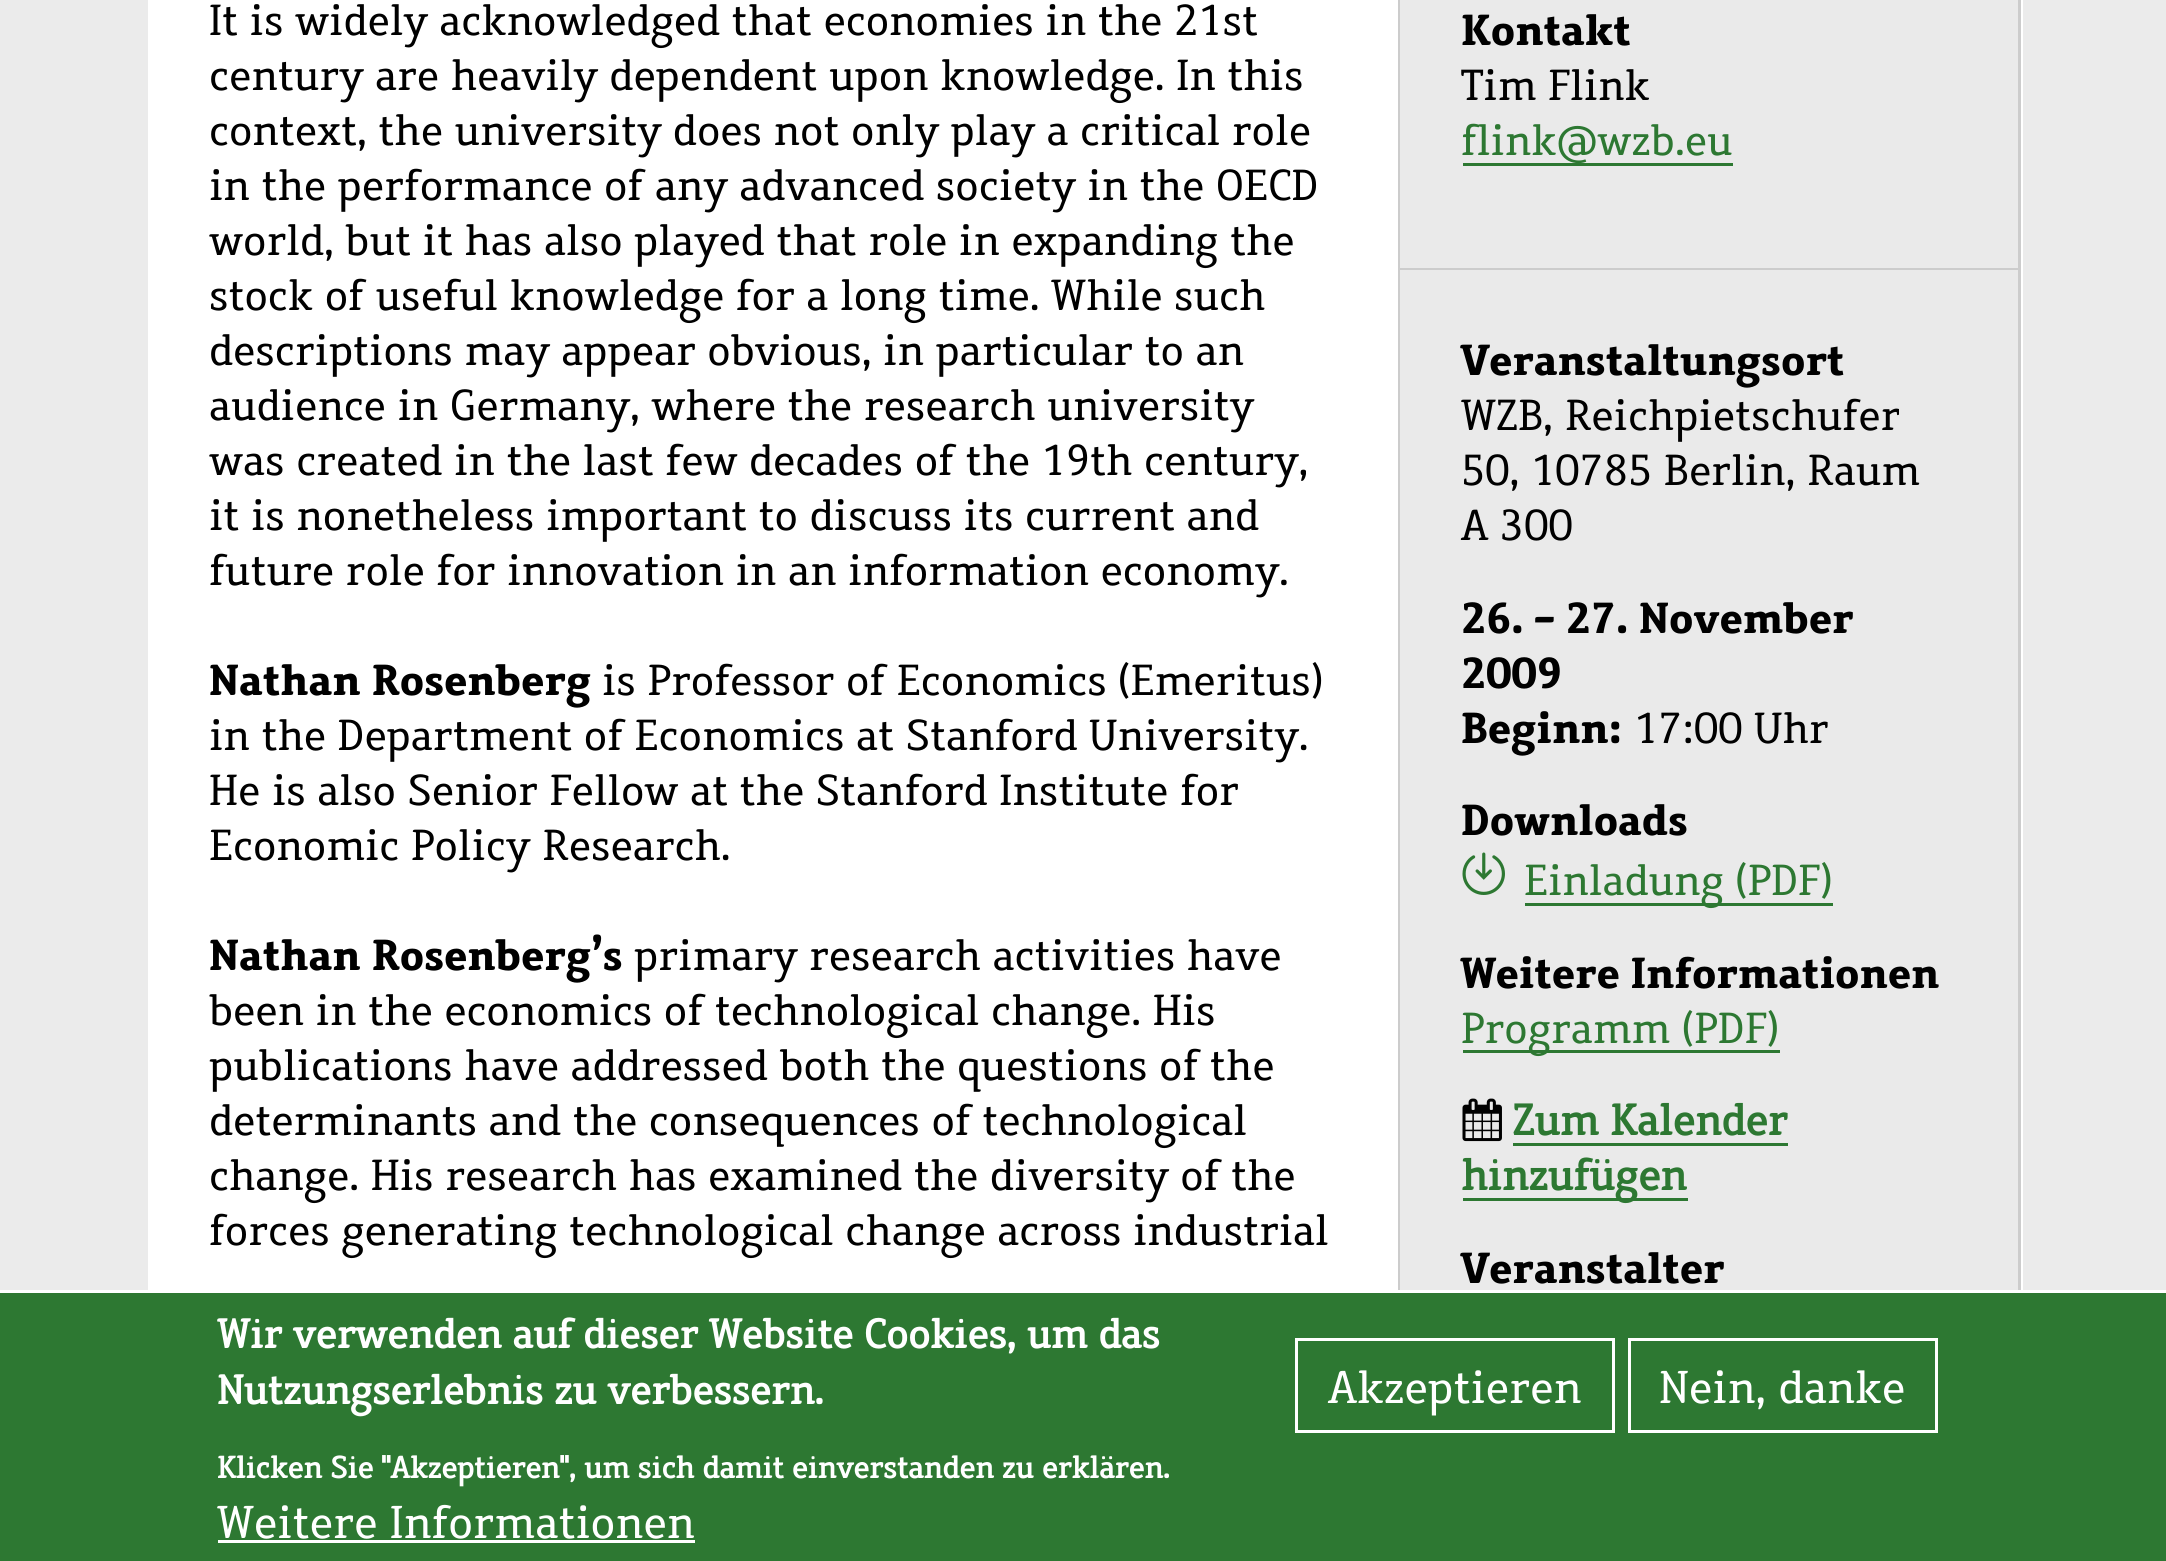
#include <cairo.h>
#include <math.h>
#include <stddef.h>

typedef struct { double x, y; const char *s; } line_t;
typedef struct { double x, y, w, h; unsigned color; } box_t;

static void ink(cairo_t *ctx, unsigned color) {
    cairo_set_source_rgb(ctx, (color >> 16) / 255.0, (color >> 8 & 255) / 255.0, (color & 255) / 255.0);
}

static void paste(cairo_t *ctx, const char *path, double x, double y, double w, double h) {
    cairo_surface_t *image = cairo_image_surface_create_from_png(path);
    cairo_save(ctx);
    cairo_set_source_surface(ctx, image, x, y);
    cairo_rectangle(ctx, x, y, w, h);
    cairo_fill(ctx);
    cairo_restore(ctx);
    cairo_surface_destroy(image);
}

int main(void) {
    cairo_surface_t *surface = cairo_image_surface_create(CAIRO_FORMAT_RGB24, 2166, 1561);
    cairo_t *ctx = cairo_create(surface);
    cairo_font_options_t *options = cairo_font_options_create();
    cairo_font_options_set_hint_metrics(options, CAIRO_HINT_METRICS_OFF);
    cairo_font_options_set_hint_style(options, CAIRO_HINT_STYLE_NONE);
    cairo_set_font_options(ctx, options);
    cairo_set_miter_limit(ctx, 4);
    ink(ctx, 0xEBEBEB);
    cairo_paint(ctx);
    ink(ctx, 0xFFFFFF);
    cairo_rectangle(ctx, 148, 0, 1875, 1290);
    cairo_fill(ctx);
    cairo_select_font_face(ctx, "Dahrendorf", CAIRO_FONT_SLANT_NORMAL, CAIRO_FONT_WEIGHT_NORMAL);
    cairo_set_font_size(ctx, 42.5);
    ink(ctx, 0x000000);
    {
        static const line_t items[] = {
            {209, 35, "It is widely acknowledged that economies in the 21st"},
            {209, 90, "century are heavily dependent upon knowledge. In this"},
            {209, 145, "context, the university does not only play a critical role"},
            {209, 200, "in the performance of any advanced society in the OECD"},
            {209, 255, "world, but it has also played that role in expanding the"},
            {209, 310, "stock of useful knowledge for a long time. While such"},
            {209, 365, "descriptions may appear obvious, in particular to an"},
            {209, 420, "audience in Germany, where the research university"},
            {209, 475, "was created in the last few decades of the 19th century,"},
            {209, 530, "it is nonetheless important to discuss its current and"},
            {209, 585, "future role for innovation in an information economy."},
        };
        for (size_t i = 0; i < sizeof items / sizeof *items; i++) {
            cairo_move_to(ctx, items[i].x, items[i].y);
            cairo_show_text(ctx, items[i].s);
        }
    }
    cairo_select_font_face(ctx, "Dahrendorf", CAIRO_FONT_SLANT_NORMAL, CAIRO_FONT_WEIGHT_BOLD);
    cairo_move_to(ctx, 209, 695);
    cairo_show_text(ctx, "Nathan Rosenberg");
    cairo_select_font_face(ctx, "Dahrendorf", CAIRO_FONT_SLANT_NORMAL, CAIRO_FONT_WEIGHT_NORMAL);
    {
        static const line_t items[] = {
            {602, 695, "is Professor of Economics (Emeritus)"},
            {209, 750, "in the Department of Economics at Stanford University."},
            {209, 805, "He is also Senior Fellow at the Stanford Institute for"},
            {209, 860, "Economic Policy Research."},
        };
        for (size_t i = 0; i < sizeof items / sizeof *items; i++) {
            cairo_move_to(ctx, items[i].x, items[i].y);
            cairo_show_text(ctx, items[i].s);
        }
    }
    cairo_select_font_face(ctx, "Dahrendorf", CAIRO_FONT_SLANT_NORMAL, CAIRO_FONT_WEIGHT_BOLD);
    cairo_move_to(ctx, 209, 970);
    cairo_show_text(ctx, "Nathan Rosenberg’s");
    cairo_select_font_face(ctx, "Dahrendorf", CAIRO_FONT_SLANT_NORMAL, CAIRO_FONT_WEIGHT_NORMAL);
    {
        static const line_t items[] = {
            {634, 970, "primary research activities have"},
            {209, 1025, "been in the economics of technological change. His"},
            {209, 1080, "publications have addressed both the questions of the"},
            {209, 1135, "determinants and the consequences of technological"},
            {209, 1190, "change. His research has examined the diversity of the"},
            {209, 1245, "forces generating technological change across industrial"},
        };
        for (size_t i = 0; i < sizeof items / sizeof *items; i++) {
            cairo_move_to(ctx, items[i].x, items[i].y);
            cairo_show_text(ctx, items[i].s);
        }
    }
    {
        static const box_t items[] = {
            {1398, 0, 2, 1290, 0xCCCCCC},
            {1400, 0, 618, 268, 0xEAEAEA},
            {2018, 0, 3, 1290, 0xCCCCCC},
            {1400, 268, 620, 2, 0xCCCCCC},
        };
        for (size_t i = 0; i < sizeof items / sizeof *items; i++) {
            ink(ctx, items[i].color);
            cairo_rectangle(ctx, items[i].x, items[i].y, items[i].w, items[i].h);
            cairo_fill(ctx);
        }
    }
    cairo_select_font_face(ctx, "Dahrendorf", CAIRO_FONT_SLANT_NORMAL, CAIRO_FONT_WEIGHT_BOLD);
    ink(ctx, 0x000000);
    cairo_move_to(ctx, 1461, 45);
    cairo_show_text(ctx, "Kontakt");
    cairo_select_font_face(ctx, "Dahrendorf", CAIRO_FONT_SLANT_NORMAL, CAIRO_FONT_WEIGHT_NORMAL);
    cairo_move_to(ctx, 1461, 100);
    cairo_show_text(ctx, "Tim Flink");
    ink(ctx, 0x2D7832);
    cairo_rectangle(ctx, 1463, 163, 270, 3);
    cairo_fill(ctx);
    cairo_move_to(ctx, 1461, 155);
    cairo_show_text(ctx, "flink@wzb.eu");
    ink(ctx, 0xEAEAEA);
    cairo_rectangle(ctx, 1400, 270, 618, 1020);
    cairo_fill(ctx);
    cairo_select_font_face(ctx, "Dahrendorf", CAIRO_FONT_SLANT_NORMAL, CAIRO_FONT_WEIGHT_BOLD);
    ink(ctx, 0x000000);
    cairo_move_to(ctx, 1461, 375);
    cairo_show_text(ctx, "Veranstaltungsort");
    cairo_select_font_face(ctx, "Dahrendorf", CAIRO_FONT_SLANT_NORMAL, CAIRO_FONT_WEIGHT_NORMAL);
    {
        static const line_t items[] = {
            {1461, 430, "WZB, Reichpietschufer"},
            {1461, 485, "50, 10785 Berlin, Raum"},
            {1461, 540, "A 300"},
        };
        for (size_t i = 0; i < sizeof items / sizeof *items; i++) {
            cairo_move_to(ctx, items[i].x, items[i].y);
            cairo_show_text(ctx, items[i].s);
        }
    }
    cairo_select_font_face(ctx, "Dahrendorf", CAIRO_FONT_SLANT_NORMAL, CAIRO_FONT_WEIGHT_BOLD);
    {
        static const line_t items[] = {
            {1461, 633, "26. - 27. November"},
            {1461, 688, "2009"},
            {1461, 743, "Beginn:"},
        };
        for (size_t i = 0; i < sizeof items / sizeof *items; i++) {
            cairo_move_to(ctx, items[i].x, items[i].y);
            cairo_show_text(ctx, items[i].s);
        }
    }
    cairo_select_font_face(ctx, "Dahrendorf", CAIRO_FONT_SLANT_NORMAL, CAIRO_FONT_WEIGHT_NORMAL);
    cairo_move_to(ctx, 1634, 743);
    cairo_show_text(ctx, "17:00 Uhr");
    cairo_select_font_face(ctx, "Dahrendorf", CAIRO_FONT_SLANT_NORMAL, CAIRO_FONT_WEIGHT_BOLD);
    cairo_move_to(ctx, 1461, 835);
    cairo_show_text(ctx, "Downloads");
    paste(ctx, "media/1.png", 1462, 852, 43, 43);
    ink(ctx, 0x2D7832);
    cairo_rectangle(ctx, 1525, 903, 308, 3);
    cairo_fill(ctx);
    cairo_select_font_face(ctx, "Dahrendorf", CAIRO_FONT_SLANT_NORMAL, CAIRO_FONT_WEIGHT_NORMAL);
    cairo_move_to(ctx, 1524, 895);
    cairo_show_text(ctx, "Einladung (PDF)");
    cairo_select_font_face(ctx, "Dahrendorf", CAIRO_FONT_SLANT_NORMAL, CAIRO_FONT_WEIGHT_BOLD);
    ink(ctx, 0x000000);
    cairo_move_to(ctx, 1461, 988);
    cairo_show_text(ctx, "Weitere Informationen");
    ink(ctx, 0x2D7832);
    cairo_rectangle(ctx, 1463, 1050, 317, 3);
    cairo_fill(ctx);
    cairo_select_font_face(ctx, "Dahrendorf", CAIRO_FONT_SLANT_NORMAL, CAIRO_FONT_WEIGHT_NORMAL);
    cairo_move_to(ctx, 1461, 1043);
    cairo_show_text(ctx, "Programm (PDF)");
    paste(ctx, "media/2.png", 1462, 1098, 40, 44);
    cairo_select_font_face(ctx, "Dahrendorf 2", CAIRO_FONT_SLANT_NORMAL, CAIRO_FONT_WEIGHT_BOLD);
    cairo_move_to(ctx, 1512, 1135);
    cairo_show_text(ctx, "Zum Kalender");
    cairo_rectangle(ctx, 1513, 1143, 275, 3);
    cairo_fill(ctx);
    cairo_rectangle(ctx, 1463, 1198, 225, 3);
    cairo_fill(ctx);
    cairo_move_to(ctx, 1461, 1190);
    cairo_show_text(ctx, "hinzufügen");
    cairo_select_font_face(ctx, "Dahrendorf", CAIRO_FONT_SLANT_NORMAL, CAIRO_FONT_WEIGHT_BOLD);
    ink(ctx, 0x000000);
    cairo_move_to(ctx, 1461, 1283);
    cairo_show_text(ctx, "Veranstalter");
    ink(ctx, 0x2D7832);
    cairo_rectangle(ctx, 0, 1293, 2166, 268);
    cairo_fill(ctx);
    ink(ctx, 0xFFFFFF);
    cairo_rectangle(ctx, 0, 1290, 2166, 3);
    cairo_fill(ctx);
    cairo_select_font_face(ctx, "Dahrendorf 2", CAIRO_FONT_SLANT_NORMAL, CAIRO_FONT_WEIGHT_BOLD);
    cairo_set_font_size(ctx, 40);
    cairo_move_to(ctx, 217, 1348);
    cairo_show_text(ctx, "Wir verwenden auf dieser Website Cookies, um das");
    cairo_move_to(ctx, 217, 1404);
    cairo_show_text(ctx, "Nutzungserlebnis zu verbessern.");
    cairo_set_font_size(ctx, 30);
    cairo_move_to(ctx, 217, 1478);
    cairo_show_text(ctx, "Klicken Sie \"Akzeptieren\", um sich damit einverstanden zu erklären.");
    cairo_select_font_face(ctx, "Dahrendorf", CAIRO_FONT_SLANT_NORMAL, CAIRO_FONT_WEIGHT_NORMAL);
    cairo_set_font_size(ctx, 45);
    cairo_move_to(ctx, 217, 1538);
    cairo_show_text(ctx, "Weitere Informationen");
    cairo_rectangle(ctx, 218, 1540, 477, 3);
    cairo_fill(ctx);
    cairo_rectangle(ctx, 1296.5, 1339.5, 317, 92);
    cairo_set_line_width(ctx, 3);
    cairo_stroke(ctx);
    cairo_move_to(ctx, 1328, 1403);
    cairo_show_text(ctx, "Akzeptieren");
    cairo_rectangle(ctx, 1629.5, 1339.5, 307, 92);
    cairo_stroke(ctx);
    cairo_move_to(ctx, 1659, 1403);
    cairo_show_text(ctx, "Nein, danke");
    cairo_surface_write_to_png(surface, "image.png");
    cairo_font_options_destroy(options);
    cairo_destroy(ctx);
    cairo_surface_destroy(surface);
    return 0;
}
